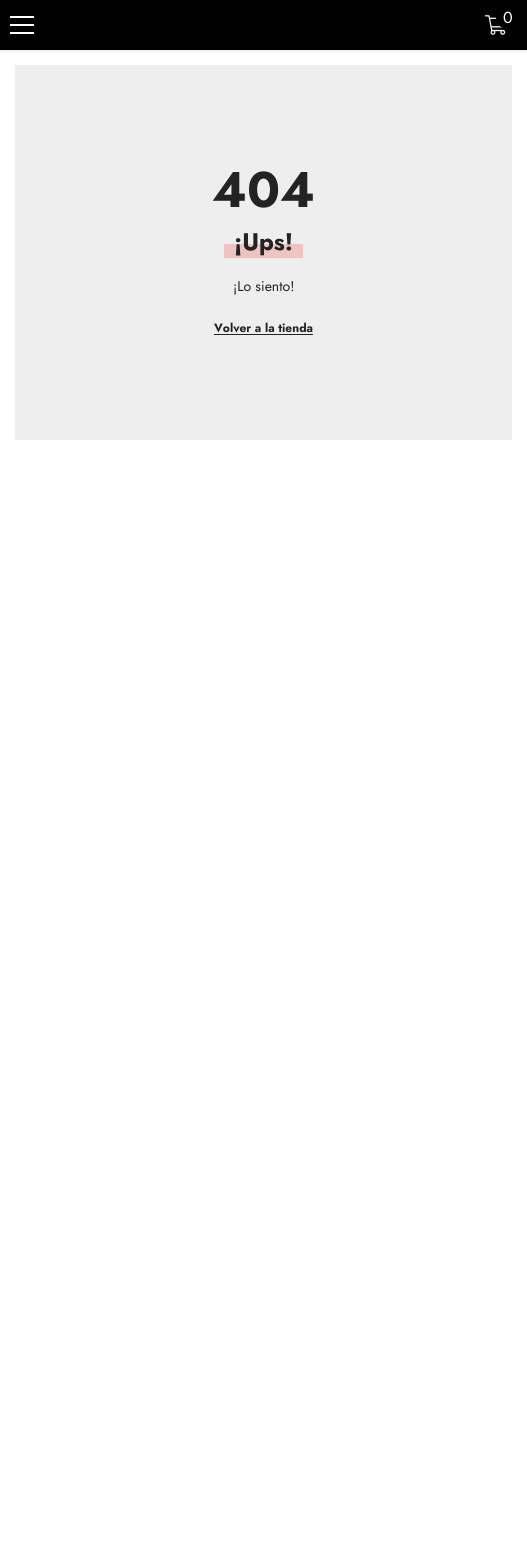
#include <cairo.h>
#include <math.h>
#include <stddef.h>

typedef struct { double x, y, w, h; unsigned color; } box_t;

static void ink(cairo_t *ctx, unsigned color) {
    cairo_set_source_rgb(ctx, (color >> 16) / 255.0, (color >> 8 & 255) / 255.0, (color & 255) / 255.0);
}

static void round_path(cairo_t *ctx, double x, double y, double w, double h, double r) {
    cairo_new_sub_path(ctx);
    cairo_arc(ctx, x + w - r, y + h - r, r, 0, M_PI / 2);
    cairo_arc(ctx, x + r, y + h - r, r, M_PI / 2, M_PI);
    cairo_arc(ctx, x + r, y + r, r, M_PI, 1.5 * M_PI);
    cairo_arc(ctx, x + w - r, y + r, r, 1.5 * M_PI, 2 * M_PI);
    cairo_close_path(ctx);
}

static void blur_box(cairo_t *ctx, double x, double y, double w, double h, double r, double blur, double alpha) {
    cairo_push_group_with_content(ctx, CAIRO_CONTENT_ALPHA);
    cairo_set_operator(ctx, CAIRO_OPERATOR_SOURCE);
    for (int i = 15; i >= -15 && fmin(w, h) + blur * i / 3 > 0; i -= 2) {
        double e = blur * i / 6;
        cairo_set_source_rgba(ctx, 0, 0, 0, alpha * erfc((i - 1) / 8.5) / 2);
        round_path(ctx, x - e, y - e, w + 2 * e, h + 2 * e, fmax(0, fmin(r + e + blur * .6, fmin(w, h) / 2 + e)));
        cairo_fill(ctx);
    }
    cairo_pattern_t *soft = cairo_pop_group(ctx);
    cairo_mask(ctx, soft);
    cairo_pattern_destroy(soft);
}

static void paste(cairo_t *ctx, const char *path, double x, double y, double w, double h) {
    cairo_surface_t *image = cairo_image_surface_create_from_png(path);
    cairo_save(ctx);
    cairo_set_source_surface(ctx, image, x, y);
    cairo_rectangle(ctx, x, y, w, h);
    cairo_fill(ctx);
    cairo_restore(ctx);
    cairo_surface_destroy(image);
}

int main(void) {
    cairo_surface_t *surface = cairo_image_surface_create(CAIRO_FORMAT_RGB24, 527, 1541);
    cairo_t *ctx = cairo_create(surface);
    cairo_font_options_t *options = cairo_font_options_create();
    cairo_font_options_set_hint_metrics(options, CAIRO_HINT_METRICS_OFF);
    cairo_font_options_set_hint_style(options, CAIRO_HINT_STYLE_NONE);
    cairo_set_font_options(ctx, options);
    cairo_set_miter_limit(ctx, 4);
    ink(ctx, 0xFFFFFF);
    cairo_paint(ctx);
    ink(ctx, 0x000000);
    blur_box(ctx, 0, 1, 527, 50, 0, 1.5, 0.1);
    {
        static const box_t items[] = {
            {0, 0, 527, 50, 0x000000},
            {10, 24, 24, 2, 0xFFFFFF},
            {10, 16, 24, 2, 0xFFFFFF},
            {10, 32, 24, 2, 0xFFFFFF},
        };
        for (size_t i = 0; i < sizeof items / sizeof *items; i++) {
            ink(ctx, items[i].color);
            cairo_rectangle(ctx, items[i].x, items[i].y, items[i].w, items[i].h);
            cairo_fill(ctx);
        }
    }
    paste(ctx, "media/1.png", 485, 15, 21, 20);
    ink(ctx, 0x000000);
    cairo_arc(ctx, 507.5, 17.5, 11.5, 0, 2 * M_PI);
    cairo_fill(ctx);
    cairo_select_font_face(ctx, "Jost", CAIRO_FONT_SLANT_NORMAL, CAIRO_FONT_WEIGHT_NORMAL);
    cairo_set_font_size(ctx, 16);
    ink(ctx, 0xFFFFFF);
    cairo_move_to(ctx, 503, 23);
    cairo_show_text(ctx, "0");
    ink(ctx, 0xEEEEEE);
    cairo_rectangle(ctx, 15, 65, 497, 375);
    cairo_fill(ctx);
    cairo_select_font_face(ctx, "Jost", CAIRO_FONT_SLANT_NORMAL, CAIRO_FONT_WEIGHT_BOLD);
    cairo_set_font_size(ctx, 50);
    ink(ctx, 0x232323);
    cairo_move_to(ctx, 212, 207);
    cairo_show_text(ctx, "404");
    ink(ctx, 0xEFC3C0);
    cairo_rectangle(ctx, 224, 244, 79, 14);
    cairo_fill(ctx);
    cairo_set_font_size(ctx, 24);
    ink(ctx, 0x232323);
    cairo_move_to(ctx, 234, 250);
    cairo_show_text(ctx, "¡Ups!");
    cairo_select_font_face(ctx, "Jost", CAIRO_FONT_SLANT_NORMAL, CAIRO_FONT_WEIGHT_NORMAL);
    cairo_set_font_size(ctx, 14);
    cairo_move_to(ctx, 233, 291);
    cairo_show_text(ctx, "¡Lo siento!");
    cairo_select_font_face(ctx, "Jost", CAIRO_FONT_SLANT_NORMAL, CAIRO_FONT_WEIGHT_BOLD);
    cairo_set_font_size(ctx, 12);
    cairo_move_to(ctx, 214, 332);
    cairo_show_text(ctx, "Volver a la tienda");
    cairo_rectangle(ctx, 214, 334, 99, 1);
    cairo_fill(ctx);
    cairo_surface_write_to_png(surface, "image.png");
    cairo_font_options_destroy(options);
    cairo_destroy(ctx);
    cairo_surface_destroy(surface);
    return 0;
}
